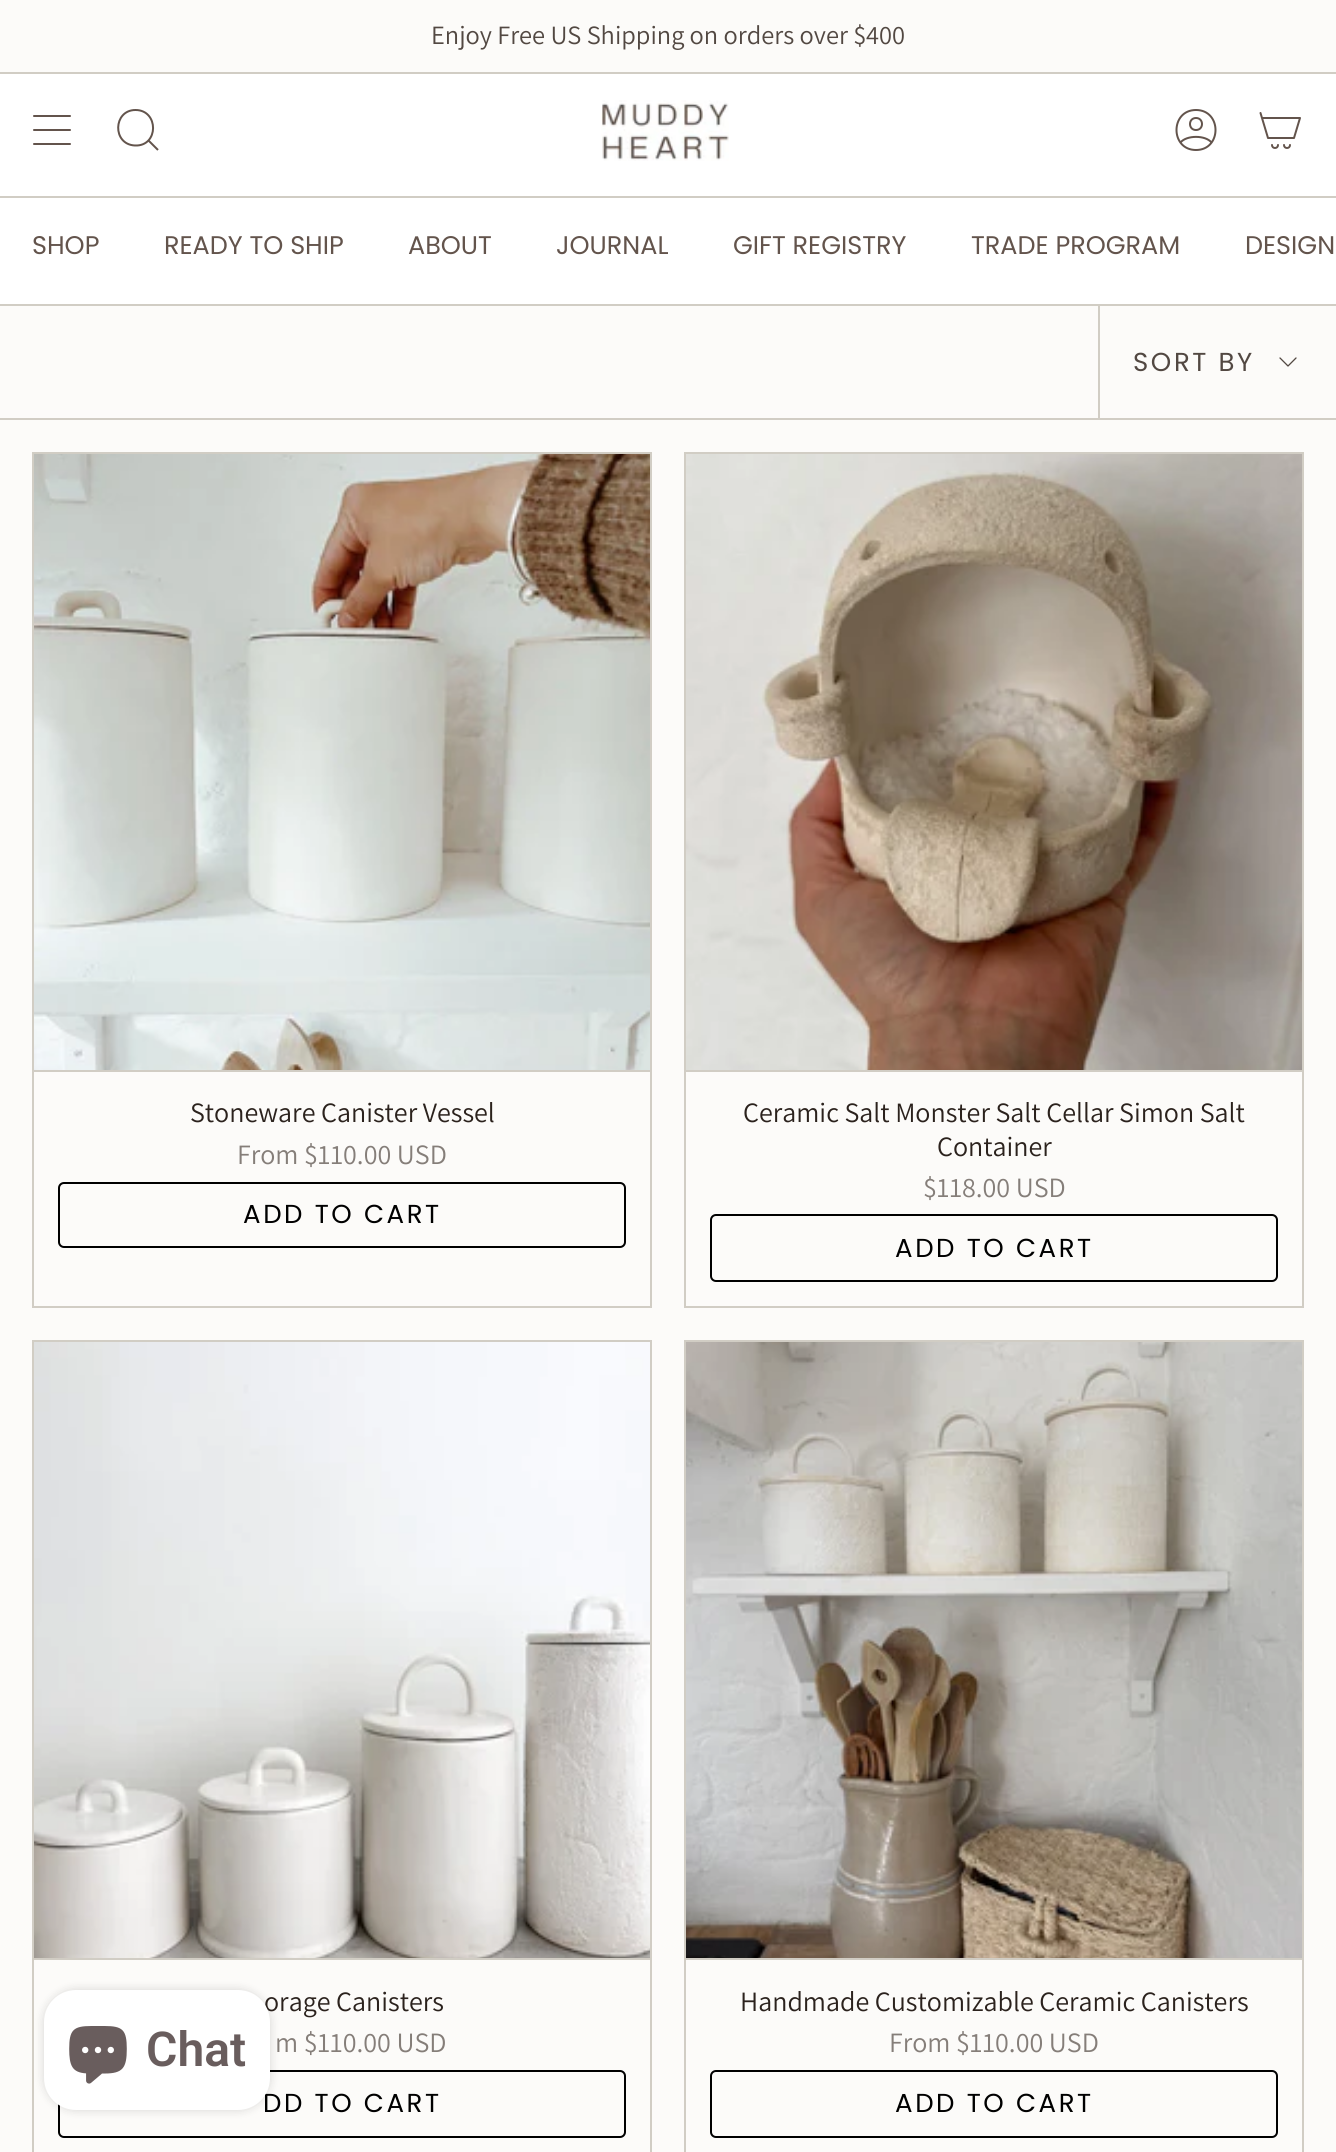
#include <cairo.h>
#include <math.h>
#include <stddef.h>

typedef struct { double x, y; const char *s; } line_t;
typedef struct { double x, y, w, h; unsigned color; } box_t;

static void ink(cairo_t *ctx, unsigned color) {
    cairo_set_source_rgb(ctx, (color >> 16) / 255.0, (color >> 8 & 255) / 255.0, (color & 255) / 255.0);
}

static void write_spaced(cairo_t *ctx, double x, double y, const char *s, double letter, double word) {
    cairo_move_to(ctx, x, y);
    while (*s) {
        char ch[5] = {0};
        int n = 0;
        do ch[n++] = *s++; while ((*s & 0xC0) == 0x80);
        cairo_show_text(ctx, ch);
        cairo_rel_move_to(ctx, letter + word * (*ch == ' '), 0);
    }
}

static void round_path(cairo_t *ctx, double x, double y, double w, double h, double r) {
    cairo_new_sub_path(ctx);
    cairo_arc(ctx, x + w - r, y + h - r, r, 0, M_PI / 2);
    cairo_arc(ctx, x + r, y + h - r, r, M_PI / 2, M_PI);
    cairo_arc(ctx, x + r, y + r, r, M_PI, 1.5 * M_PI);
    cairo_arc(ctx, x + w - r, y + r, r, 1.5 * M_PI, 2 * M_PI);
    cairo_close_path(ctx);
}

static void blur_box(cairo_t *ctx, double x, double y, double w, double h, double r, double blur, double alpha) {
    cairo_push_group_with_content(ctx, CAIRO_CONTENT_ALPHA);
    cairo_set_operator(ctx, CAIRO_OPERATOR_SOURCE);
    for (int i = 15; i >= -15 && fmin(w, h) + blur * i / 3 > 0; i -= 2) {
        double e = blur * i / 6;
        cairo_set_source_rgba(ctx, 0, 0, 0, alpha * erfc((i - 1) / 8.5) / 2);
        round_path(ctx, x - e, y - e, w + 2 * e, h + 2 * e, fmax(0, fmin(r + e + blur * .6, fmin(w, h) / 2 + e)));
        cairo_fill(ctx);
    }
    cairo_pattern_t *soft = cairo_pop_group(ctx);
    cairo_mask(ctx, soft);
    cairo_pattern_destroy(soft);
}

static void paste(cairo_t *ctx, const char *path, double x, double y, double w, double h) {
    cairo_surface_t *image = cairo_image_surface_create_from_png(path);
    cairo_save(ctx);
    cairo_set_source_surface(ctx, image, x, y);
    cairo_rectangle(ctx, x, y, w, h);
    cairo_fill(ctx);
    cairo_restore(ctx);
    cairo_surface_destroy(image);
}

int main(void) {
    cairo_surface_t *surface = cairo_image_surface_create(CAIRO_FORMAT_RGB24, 1336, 2152);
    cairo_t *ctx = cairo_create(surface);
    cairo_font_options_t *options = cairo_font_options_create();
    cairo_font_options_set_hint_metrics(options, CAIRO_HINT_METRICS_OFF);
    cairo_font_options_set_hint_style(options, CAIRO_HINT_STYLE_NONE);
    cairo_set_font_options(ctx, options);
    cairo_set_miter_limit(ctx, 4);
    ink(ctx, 0xFCFBF9);
    cairo_paint(ctx);
    ink(ctx, 0xD1CDC4);
    cairo_rectangle(ctx, 0, 72, 1336, 2);
    cairo_fill(ctx);
    cairo_select_font_face(ctx, "Assistant", CAIRO_FONT_SLANT_NORMAL, CAIRO_FONT_WEIGHT_NORMAL);
    cairo_set_font_size(ctx, 26.4);
    ink(ctx, 0x524842);
    cairo_move_to(ctx, 431, 44);
    cairo_show_text(ctx, "Enjoy Free US Shipping on orders over $400");
    ink(ctx, 0xFFFFFF);
    cairo_rectangle(ctx, 0, 74, 1336, 230);
    cairo_fill(ctx);
    cairo_new_path(ctx);
    cairo_move_to(ctx, 34, 116);
    cairo_line_to(ctx, 70, 116);
    cairo_move_to(ctx, 34, 130);
    cairo_line_to(ctx, 70, 130);
    cairo_move_to(ctx, 34, 144);
    cairo_line_to(ctx, 70, 144);
    ink(ctx, 0x63544C);
    cairo_set_line_cap(ctx, CAIRO_LINE_CAP_ROUND);
    cairo_set_line_join(ctx, CAIRO_LINE_JOIN_ROUND);
    cairo_stroke(ctx);
    cairo_new_path(ctx);
    cairo_move_to(ctx, 135.5, 110);
    cairo_curve_to(ctx, 159, 110, 159, 146.5, 135, 145.5);
    cairo_curve_to(ctx, 112, 144.5, 113, 110, 135.5, 110);
    cairo_close_path(ctx);
    cairo_move_to(ctx, 148, 140);
    cairo_line_to(ctx, 158, 150);
    cairo_set_line_cap(ctx, CAIRO_LINE_CAP_BUTT);
    cairo_set_line_join(ctx, CAIRO_LINE_JOIN_MITER);
    cairo_stroke(ctx);
    paste(ctx, "media/1.png", 601, 100, 128, 61);
    cairo_new_path(ctx);
    cairo_move_to(ctx, 1196, 110);
    cairo_curve_to(ctx, 1170, 110, 1170, 150, 1196, 150);
    cairo_curve_to(ctx, 1222, 150, 1222, 110, 1196, 110);
    cairo_close_path(ctx);
    cairo_move_to(ctx, 1180.5, 142.5);
    cairo_curve_to(ctx, 1186.5, 135, 1205.5, 135, 1211.5, 142.5);
    cairo_move_to(ctx, 1196, 130);
    cairo_curve_to(ctx, 1204, 130, 1204, 118, 1196, 118);
    cairo_curve_to(ctx, 1188, 118, 1188, 130, 1196, 130);
    cairo_close_path(ctx);
    cairo_set_line_cap(ctx, CAIRO_LINE_CAP_ROUND);
    cairo_set_line_join(ctx, CAIRO_LINE_JOIN_ROUND);
    cairo_stroke(ctx);
    cairo_new_path(ctx);
    cairo_move_to(ctx, 1262, 118);
    cairo_line_to(ctx, 1300, 118);
    cairo_line_to(ctx, 1294, 138);
    cairo_line_to(ctx, 1268, 138);
    cairo_close_path(ctx);
    cairo_move_to(ctx, 1262, 118);
    cairo_line_to(ctx, 1260.5, 113);
    cairo_move_to(ctx, 1278, 145);
    cairo_curve_to(ctx, 1278, 149, 1272, 149, 1272, 145);
    cairo_move_to(ctx, 1290, 145);
    cairo_curve_to(ctx, 1290, 149, 1284, 149, 1284, 145);
    cairo_stroke(ctx);
    ink(ctx, 0xD1CDC4);
    cairo_rectangle(ctx, 0, 196, 1336, 2);
    cairo_fill(ctx);
    cairo_select_font_face(ctx, "Poppins", CAIRO_FONT_SLANT_NORMAL, CAIRO_FONT_WEIGHT_NORMAL);
    cairo_set_font_size(ctx, 25.5);
    ink(ctx, 0x63544C);
    {
        static const line_t items[] = {
            {32, 254, "SHOP"},
            {164, 254, "READY TO SHIP"},
            {408, 254, "ABOUT"},
            {556, 254, "JOURNAL"},
            {733, 254, "GIFT REGISTRY"},
            {971, 254, "TRADE PROGRAM"},
            {1245, 254, "DESIGN"},
        };
        for (size_t i = 0; i < sizeof items / sizeof *items; i++) {
            cairo_move_to(ctx, items[i].x, items[i].y);
            cairo_show_text(ctx, items[i].s);
        }
    }
    {
        static const box_t items[] = {
            {0, 304, 1336, 2, 0xD1CDC4},
            {0, 418, 1336, 2, 0xD1CDC4},
            {1098, 306, 2, 112, 0xD1CDC4},
        };
        for (size_t i = 0; i < sizeof items / sizeof *items; i++) {
            ink(ctx, items[i].color);
            cairo_rectangle(ctx, items[i].x, items[i].y, items[i].w, items[i].h);
            cairo_fill(ctx);
        }
    }
    cairo_set_font_size(ctx, 26);
    ink(ctx, 0x524842);
    write_spaced(ctx, 1133, 371, "SORT BY", 2.6, 0);
    cairo_new_path(ctx);
    cairo_move_to(ctx, 1280, 358);
    cairo_line_to(ctx, 1288, 366);
    cairo_line_to(ctx, 1296, 358);
    cairo_set_line_width(ctx, 1.3);
    cairo_stroke(ctx);
    cairo_rectangle(ctx, 33, 453, 618, 854);
    ink(ctx, 0xD1CDC4);
    cairo_set_line_width(ctx, 2);
    cairo_set_line_cap(ctx, CAIRO_LINE_CAP_BUTT);
    cairo_set_line_join(ctx, CAIRO_LINE_JOIN_MITER);
    cairo_stroke(ctx);
    cairo_rectangle(ctx, 34, 1070, 616, 2);
    cairo_fill(ctx);
    paste(ctx, "media/2.png", 34, 454, 616, 616);
    cairo_select_font_face(ctx, "Assistant", CAIRO_FONT_SLANT_NORMAL, CAIRO_FONT_WEIGHT_NORMAL);
    cairo_set_font_size(ctx, 28);
    ink(ctx, 0x2B221D);
    cairo_move_to(ctx, 190, 1122);
    cairo_show_text(ctx, "Stoneware Canister Vessel");
    ink(ctx, 0x857E79);
    cairo_move_to(ctx, 237, 1164);
    cairo_show_text(ctx, "From $110.00 USD");
    round_path(ctx, 59, 1183, 566, 64, 5);
    ink(ctx, 0x000000);
    cairo_stroke(ctx);
    cairo_select_font_face(ctx, "Poppins", CAIRO_FONT_SLANT_NORMAL, CAIRO_FONT_WEIGHT_NORMAL);
    cairo_set_font_size(ctx, 26);
    write_spaced(ctx, 243, 1223, "ADD TO CART", 2.6, 0);
    cairo_rectangle(ctx, 685, 453, 618, 854);
    ink(ctx, 0xD1CDC4);
    cairo_stroke(ctx);
    cairo_rectangle(ctx, 686, 1070, 616, 2);
    cairo_fill(ctx);
    paste(ctx, "media/3.png", 686, 454, 616, 616);
    cairo_select_font_face(ctx, "Assistant", CAIRO_FONT_SLANT_NORMAL, CAIRO_FONT_WEIGHT_NORMAL);
    cairo_set_font_size(ctx, 28);
    ink(ctx, 0x2B221D);
    cairo_move_to(ctx, 743, 1122);
    cairo_show_text(ctx, "Ceramic Salt Monster Salt Cellar Simon Salt");
    cairo_move_to(ctx, 937, 1156);
    cairo_show_text(ctx, "Container");
    ink(ctx, 0x857E79);
    cairo_move_to(ctx, 923, 1197);
    cairo_show_text(ctx, "$118.00 USD");
    round_path(ctx, 711, 1215, 566, 66, 5);
    ink(ctx, 0x000000);
    cairo_stroke(ctx);
    cairo_select_font_face(ctx, "Poppins", CAIRO_FONT_SLANT_NORMAL, CAIRO_FONT_WEIGHT_NORMAL);
    cairo_set_font_size(ctx, 26);
    write_spaced(ctx, 895, 1257, "ADD TO CART", 2.6, 0);
    cairo_rectangle(ctx, 33, 1341, 618, 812);
    ink(ctx, 0xD1CDC4);
    cairo_stroke(ctx);
    cairo_rectangle(ctx, 34, 1958, 616, 2);
    cairo_fill(ctx);
    paste(ctx, "media/4.png", 34, 1342, 616, 616);
    cairo_select_font_face(ctx, "Assistant", CAIRO_FONT_SLANT_NORMAL, CAIRO_FONT_WEIGHT_NORMAL);
    cairo_set_font_size(ctx, 28);
    ink(ctx, 0x2B221D);
    cairo_move_to(ctx, 264, 2011);
    cairo_show_text(ctx, "orage Canisters");
    ink(ctx, 0x857E79);
    cairo_move_to(ctx, 275, 2052);
    cairo_show_text(ctx, "m $110.00 USD");
    round_path(ctx, 59, 2071, 566, 66, 5);
    ink(ctx, 0x000000);
    cairo_stroke(ctx);
    cairo_select_font_face(ctx, "Poppins", CAIRO_FONT_SLANT_NORMAL, CAIRO_FONT_WEIGHT_NORMAL);
    cairo_set_font_size(ctx, 26);
    write_spaced(ctx, 263, 2112, "DD TO CART", 2.6, 0);
    cairo_rectangle(ctx, 685, 1341, 618, 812);
    ink(ctx, 0xD1CDC4);
    cairo_stroke(ctx);
    cairo_rectangle(ctx, 686, 1958, 616, 2);
    cairo_fill(ctx);
    paste(ctx, "media/5.png", 686, 1342, 616, 616);
    cairo_select_font_face(ctx, "Assistant", CAIRO_FONT_SLANT_NORMAL, CAIRO_FONT_WEIGHT_NORMAL);
    cairo_set_font_size(ctx, 28);
    ink(ctx, 0x2B221D);
    cairo_move_to(ctx, 740, 2011);
    cairo_show_text(ctx, "Handmade Customizable Ceramic Canisters");
    ink(ctx, 0x857E79);
    cairo_move_to(ctx, 889, 2052);
    cairo_show_text(ctx, "From $110.00 USD");
    round_path(ctx, 711, 2071, 566, 66, 5);
    ink(ctx, 0x000000);
    cairo_stroke(ctx);
    cairo_select_font_face(ctx, "Poppins", CAIRO_FONT_SLANT_NORMAL, CAIRO_FONT_WEIGHT_NORMAL);
    cairo_set_font_size(ctx, 26);
    write_spaced(ctx, 895, 2112, "ADD TO CART", 2.6, 0);
    ink(ctx, 0x000000);
    blur_box(ctx, 44, 1990, 226, 120, 32, 5, 0.15);
    ink(ctx, 0xFFFFFF);
    round_path(ctx, 44, 1990, 226, 120, 32);
    cairo_fill(ctx);
    paste(ctx, "media/6.png", 69, 2026, 58, 58);
    cairo_select_font_face(ctx, "Roboto SemiBold", CAIRO_FONT_SLANT_NORMAL, CAIRO_FONT_WEIGHT_NORMAL);
    cairo_set_font_size(ctx, 48);
    ink(ctx, 0x695D5D);
    cairo_move_to(ctx, 146, 2066);
    cairo_show_text(ctx, "Chat");
    cairo_surface_write_to_png(surface, "image.png");
    cairo_font_options_destroy(options);
    cairo_destroy(ctx);
    cairo_surface_destroy(surface);
    return 0;
}
